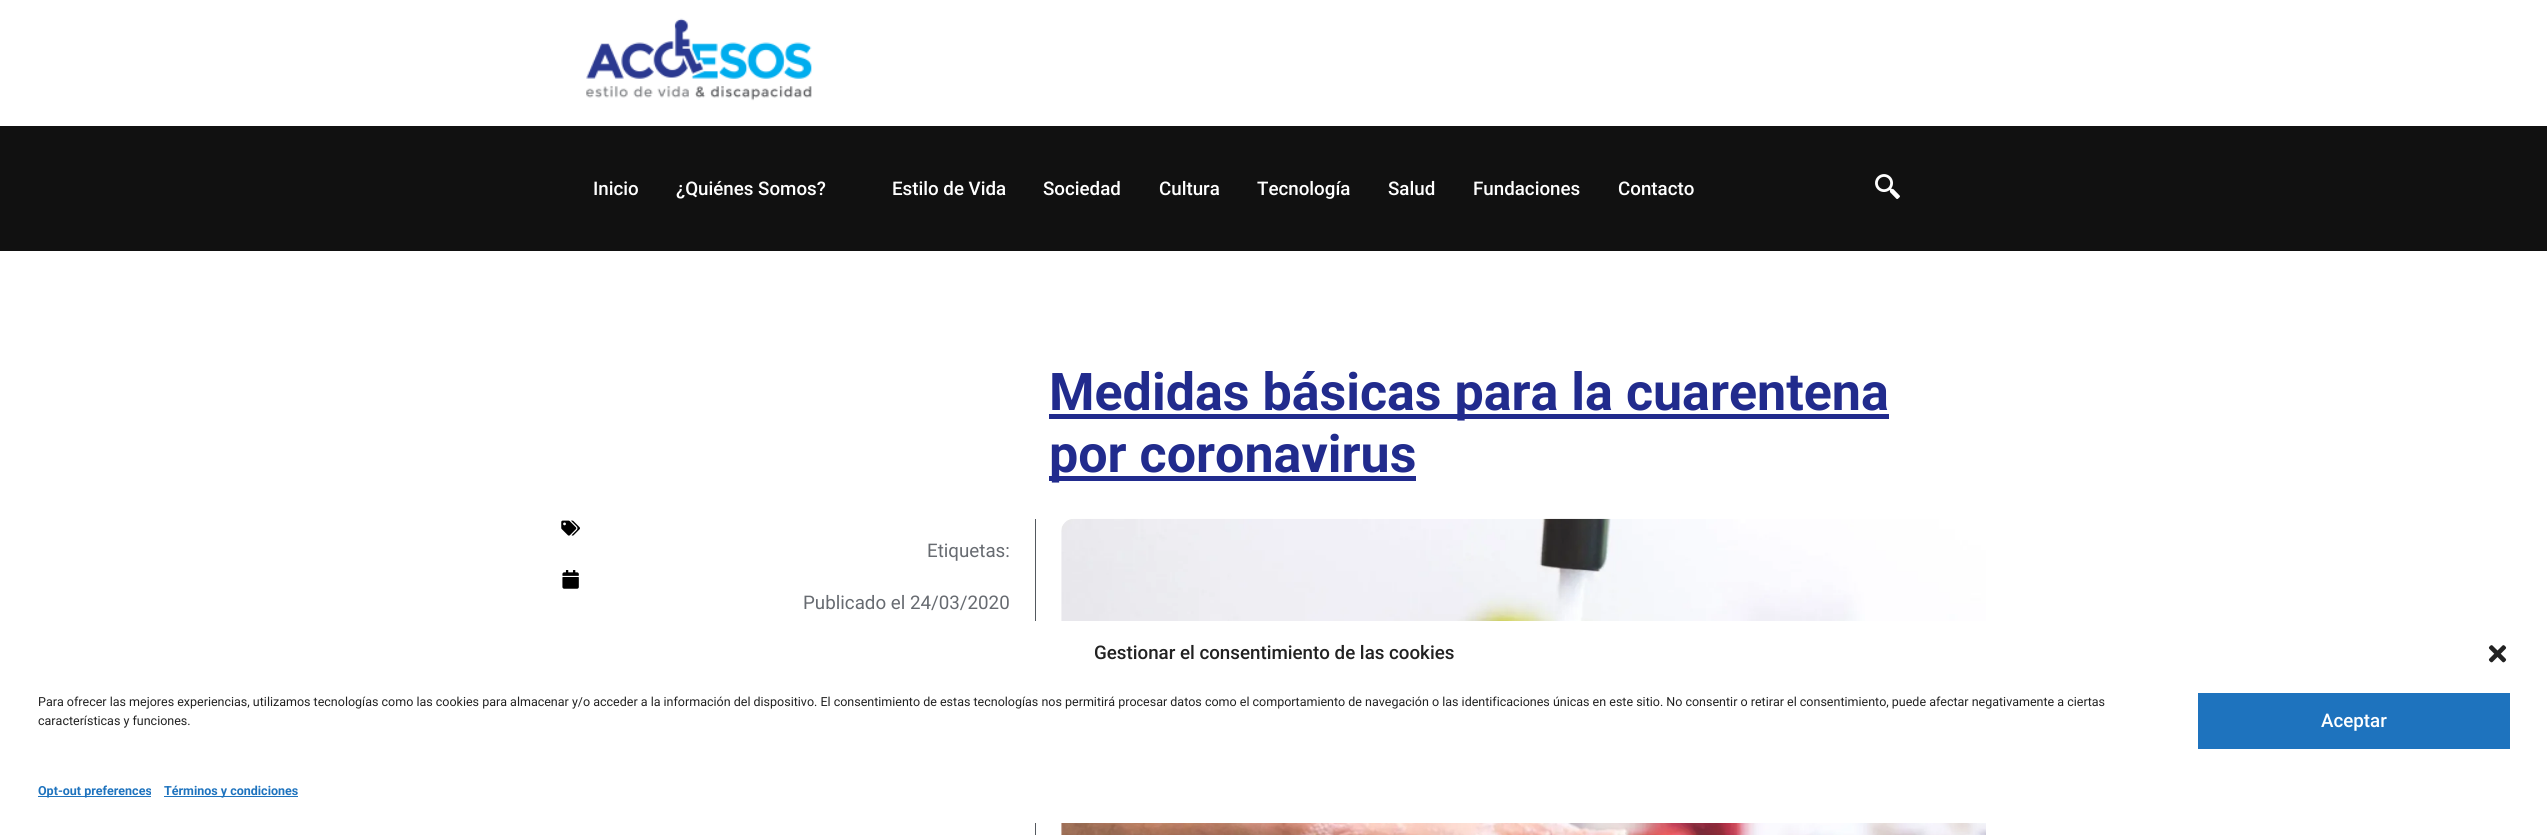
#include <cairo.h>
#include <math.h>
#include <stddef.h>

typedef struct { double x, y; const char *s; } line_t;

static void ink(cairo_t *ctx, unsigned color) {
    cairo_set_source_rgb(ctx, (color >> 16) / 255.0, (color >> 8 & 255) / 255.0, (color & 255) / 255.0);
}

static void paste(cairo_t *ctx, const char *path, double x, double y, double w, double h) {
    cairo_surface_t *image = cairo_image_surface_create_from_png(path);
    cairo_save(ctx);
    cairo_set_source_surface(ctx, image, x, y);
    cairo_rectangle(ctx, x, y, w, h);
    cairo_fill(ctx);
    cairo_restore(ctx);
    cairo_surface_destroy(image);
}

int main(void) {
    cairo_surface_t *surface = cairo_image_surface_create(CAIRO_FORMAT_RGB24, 2547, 835);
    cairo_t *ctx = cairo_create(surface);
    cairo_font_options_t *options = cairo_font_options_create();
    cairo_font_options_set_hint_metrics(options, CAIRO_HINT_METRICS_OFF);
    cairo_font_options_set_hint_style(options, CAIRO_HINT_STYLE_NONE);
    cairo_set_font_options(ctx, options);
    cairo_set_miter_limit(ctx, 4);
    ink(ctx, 0xFFFFFF);
    cairo_paint(ctx);
    paste(ctx, "media/1.png", 586, 18, 226, 83);
    ink(ctx, 0x111111);
    cairo_rectangle(ctx, 0, 126, 2547, 125);
    cairo_fill(ctx);
    cairo_select_font_face(ctx, "Roboto Medium", CAIRO_FONT_SLANT_NORMAL, CAIRO_FONT_WEIGHT_NORMAL);
    cairo_set_font_size(ctx, 18.75);
    ink(ctx, 0xFFFFFF);
    {
        static const line_t items[] = {
            {593, 195, "Inicio"},
            {676, 195, "¿Quiénes Somos?"},
            {892, 195, "Estilo de Vida"},
            {1043, 195, "Sociedad"},
            {1159, 195, "Cultura"},
            {1257, 195, "Tecnología"},
            {1388, 195, "Salud"},
            {1473, 195, "Fundaciones"},
            {1618, 195, "Contacto"},
        };
        for (size_t i = 0; i < sizeof items / sizeof *items; i++) {
            cairo_move_to(ctx, items[i].x, items[i].y);
            cairo_show_text(ctx, items[i].s);
        }
    }
    paste(ctx, "media/2.png", 1875, 174, 25, 25);
    ink(ctx, 0x212B8D);
    cairo_rectangle(ctx, 1049, 414, 840, 5);
    cairo_fill(ctx);
    cairo_select_font_face(ctx, "Roboto", CAIRO_FONT_SLANT_NORMAL, CAIRO_FONT_WEIGHT_BOLD);
    cairo_set_font_size(ctx, 52);
    cairo_move_to(ctx, 1049, 410);
    cairo_show_text(ctx, "Medidas básicas para la cuarentena");
    cairo_rectangle(ctx, 1049, 476, 367, 5);
    cairo_fill(ctx);
    cairo_move_to(ctx, 1049, 472);
    cairo_show_text(ctx, "por coronavirus");
    ink(ctx, 0x54595F);
    cairo_rectangle(ctx, 1035, 519, 1, 316);
    cairo_fill(ctx);
    paste(ctx, "media/3.png", 561, 520, 19, 16);
    cairo_select_font_face(ctx, "Roboto", CAIRO_FONT_SLANT_NORMAL, CAIRO_FONT_WEIGHT_NORMAL);
    cairo_set_font_size(ctx, 18.75);
    ink(ctx, 0x676B71);
    cairo_move_to(ctx, 927, 557);
    cairo_show_text(ctx, "Etiquetas:");
    paste(ctx, "media/4.png", 562, 570, 17, 19);
    cairo_move_to(ctx, 803, 609);
    cairo_show_text(ctx, "Publicado el 24/03/2020");
    paste(ctx, "media/5.png", 1061, 518, 925, 317);
    ink(ctx, 0xFFFFFF);
    cairo_rectangle(ctx, 1035, 621, 951, 202);
    cairo_fill(ctx);
    cairo_select_font_face(ctx, "Roboto Medium", CAIRO_FONT_SLANT_NORMAL, CAIRO_FONT_WEIGHT_NORMAL);
    ink(ctx, 0x222222);
    cairo_move_to(ctx, 1094, 659);
    cairo_show_text(ctx, "Gestionar el consentimiento de las cookies");
    paste(ctx, "media/6.png", 2488, 645, 19, 18);
    cairo_select_font_face(ctx, "Roboto", CAIRO_FONT_SLANT_NORMAL, CAIRO_FONT_WEIGHT_NORMAL);
    cairo_set_font_size(ctx, 12.5);
    cairo_move_to(ctx, 38, 706);
    cairo_show_text(ctx, "Para ofrecer las mejores experiencias, utilizamos tecnologías como las cookies para almacenar y/o acceder a la información del dispositivo. El consentimiento de estas tecnologías nos permitirá procesar datos como el comportamiento de navegación o las identificaciones únicas en este sitio. No consentir o retirar el consentimiento, puede afectar negativamente a ciertas");
    cairo_move_to(ctx, 38, 725);
    cairo_show_text(ctx, "características y funciones.");
    ink(ctx, 0x1E73BE);
    cairo_rectangle(ctx, 2198, 693, 312, 56);
    cairo_fill(ctx);
    cairo_select_font_face(ctx, "Roboto Medium", CAIRO_FONT_SLANT_NORMAL, CAIRO_FONT_WEIGHT_NORMAL);
    cairo_set_font_size(ctx, 18.75);
    ink(ctx, 0xFFFFFF);
    cairo_move_to(ctx, 2321, 727);
    cairo_show_text(ctx, "Aceptar");
    ink(ctx, 0x1E73BE);
    cairo_rectangle(ctx, 38, 796, 113, 1);
    cairo_fill(ctx);
    cairo_select_font_face(ctx, "Roboto", CAIRO_FONT_SLANT_NORMAL, CAIRO_FONT_WEIGHT_BOLD);
    cairo_set_font_size(ctx, 12.5);
    cairo_move_to(ctx, 38, 795);
    cairo_show_text(ctx, "Opt-out preferences");
    cairo_rectangle(ctx, 164, 796, 134, 1);
    cairo_fill(ctx);
    cairo_move_to(ctx, 164, 795);
    cairo_show_text(ctx, "Términos y condiciones");
    cairo_surface_write_to_png(surface, "image.png");
    cairo_font_options_destroy(options);
    cairo_destroy(ctx);
    cairo_surface_destroy(surface);
    return 0;
}
